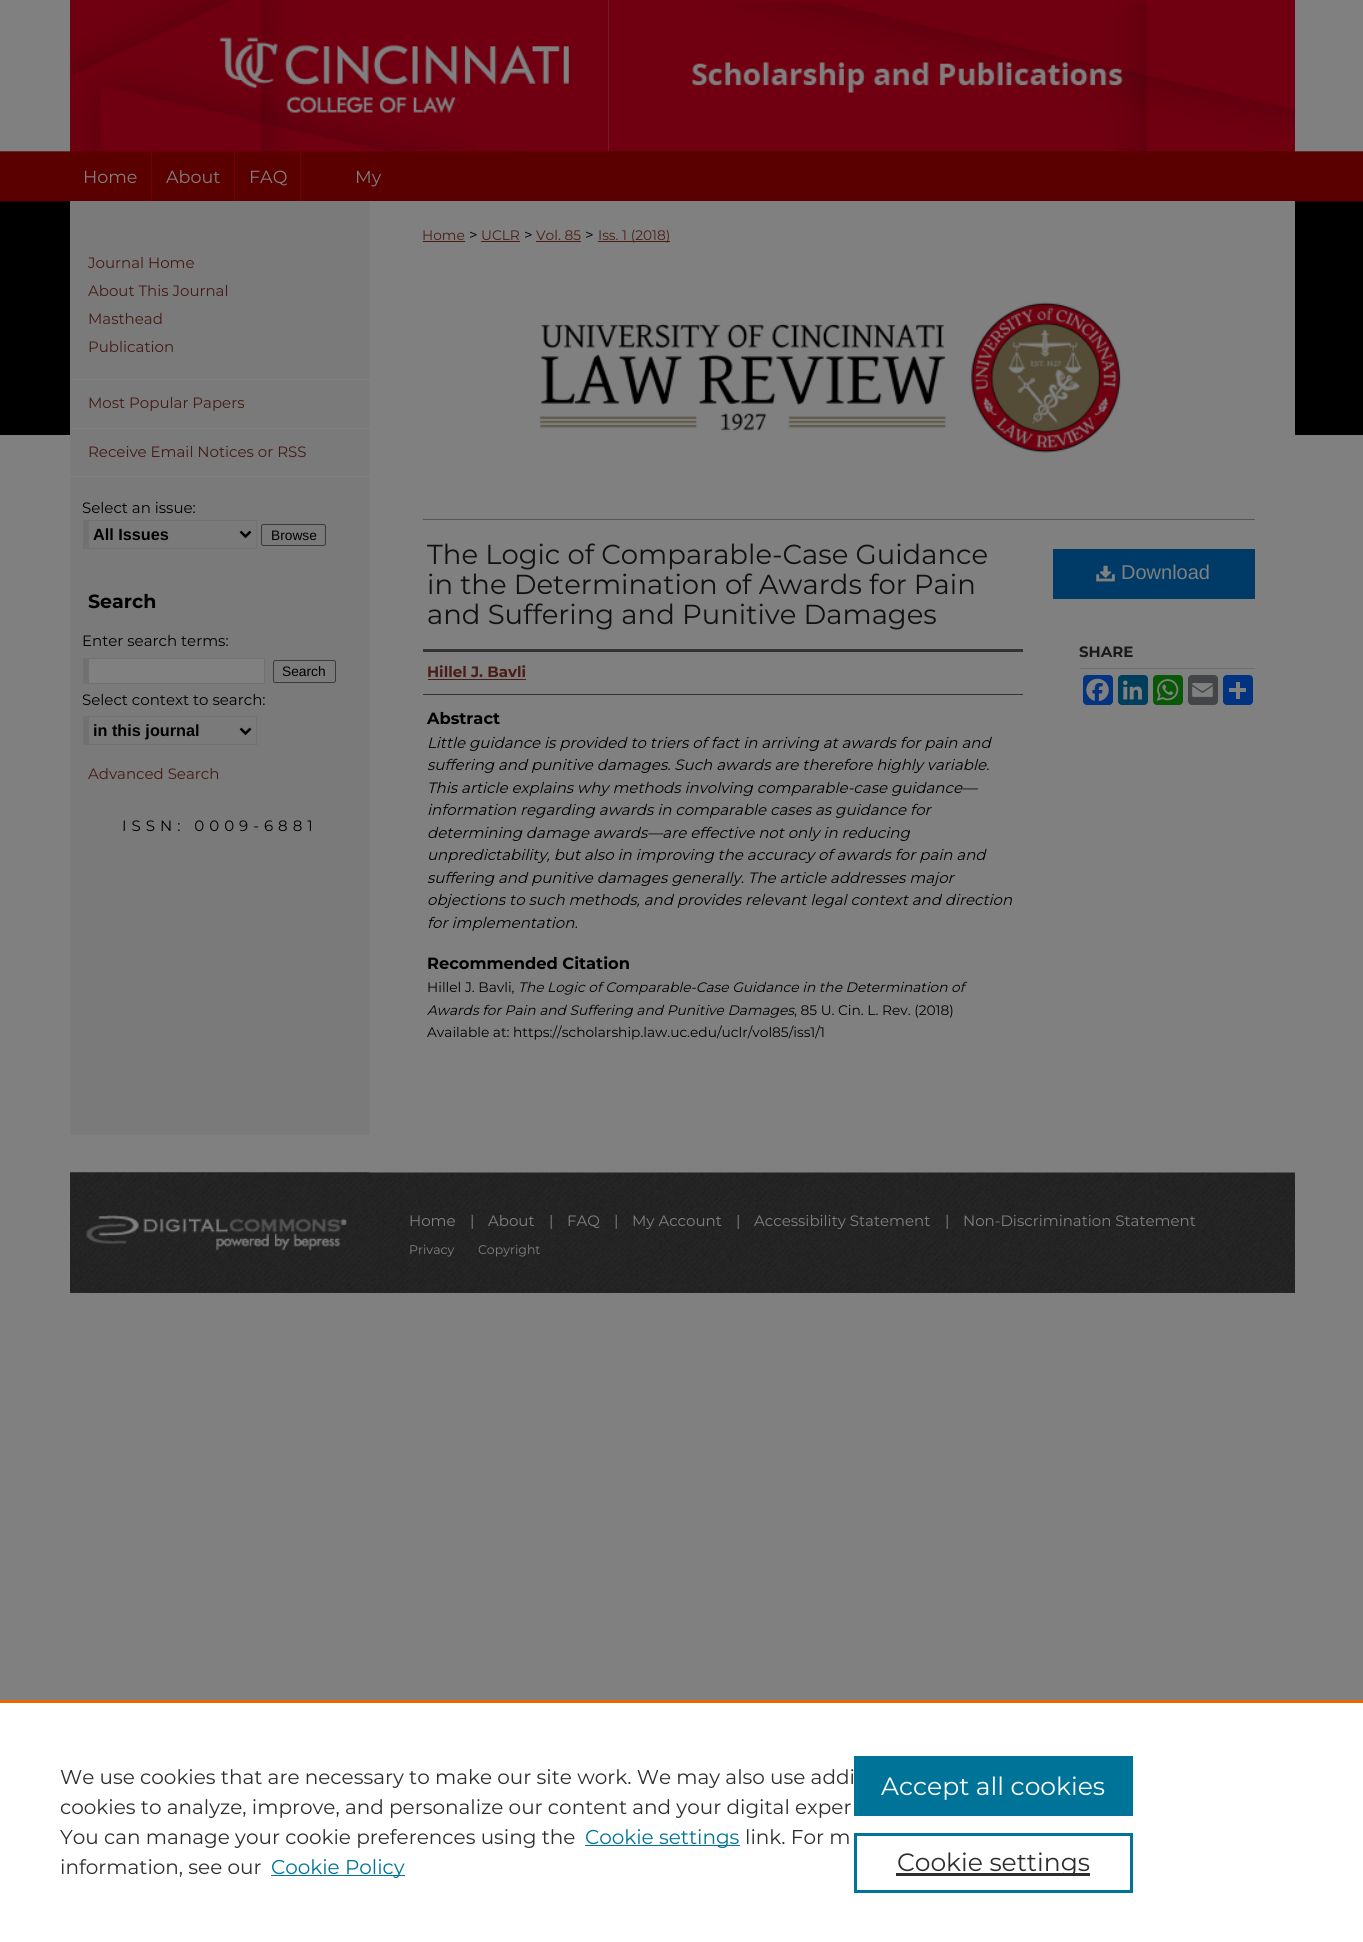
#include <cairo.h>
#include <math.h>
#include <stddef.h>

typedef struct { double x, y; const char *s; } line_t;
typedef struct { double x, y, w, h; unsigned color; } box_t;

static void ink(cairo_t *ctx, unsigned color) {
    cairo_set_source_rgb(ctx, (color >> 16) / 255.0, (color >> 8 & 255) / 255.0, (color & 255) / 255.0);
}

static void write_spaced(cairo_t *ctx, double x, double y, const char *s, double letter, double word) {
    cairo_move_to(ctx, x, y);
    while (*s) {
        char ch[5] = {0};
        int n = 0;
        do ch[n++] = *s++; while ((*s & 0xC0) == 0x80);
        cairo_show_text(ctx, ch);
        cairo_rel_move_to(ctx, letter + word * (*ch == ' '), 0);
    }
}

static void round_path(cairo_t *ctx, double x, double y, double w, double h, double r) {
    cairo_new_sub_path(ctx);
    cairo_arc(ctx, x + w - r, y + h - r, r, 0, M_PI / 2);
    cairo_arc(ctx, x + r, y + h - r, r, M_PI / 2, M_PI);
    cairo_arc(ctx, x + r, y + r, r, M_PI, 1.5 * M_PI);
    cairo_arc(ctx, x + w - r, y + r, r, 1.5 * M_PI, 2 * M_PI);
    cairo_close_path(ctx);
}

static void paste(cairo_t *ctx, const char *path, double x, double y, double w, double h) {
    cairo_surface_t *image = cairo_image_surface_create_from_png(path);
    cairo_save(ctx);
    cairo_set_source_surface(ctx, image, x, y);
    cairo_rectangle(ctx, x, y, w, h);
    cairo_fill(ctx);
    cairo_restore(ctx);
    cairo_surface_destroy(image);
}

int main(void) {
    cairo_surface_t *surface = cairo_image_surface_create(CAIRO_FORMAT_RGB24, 1363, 1942);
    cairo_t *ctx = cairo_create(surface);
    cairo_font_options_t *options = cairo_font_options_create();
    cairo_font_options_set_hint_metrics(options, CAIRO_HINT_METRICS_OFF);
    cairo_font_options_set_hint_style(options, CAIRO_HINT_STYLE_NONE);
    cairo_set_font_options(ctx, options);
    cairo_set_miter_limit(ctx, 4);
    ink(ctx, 0x808080);
    cairo_paint(ctx);
    paste(ctx, "media/1.png", 0, 151, 1363, 284);
    paste(ctx, "media/3.png", 608, 0, 687, 151);
    ink(ctx, 0x5B0000);
    cairo_rectangle(ctx, 70, 151, 1225, 1);
    cairo_fill(ctx);
    paste(ctx, "media/2.png", 70, 0, 539, 152);
    ink(ctx, 0x740000);
    cairo_rectangle(ctx, 151, 151, 1, 50);
    cairo_fill(ctx);
    cairo_select_font_face(ctx, "Montserrat", CAIRO_FONT_SLANT_NORMAL, CAIRO_FONT_WEIGHT_NORMAL);
    cairo_set_font_size(ctx, 17.5);
    ink(ctx, 0x808080);
    cairo_move_to(ctx, 83, 183);
    cairo_show_text(ctx, "Home");
    ink(ctx, 0x740000);
    cairo_rectangle(ctx, 234, 151, 1, 50);
    cairo_fill(ctx);
    ink(ctx, 0x808080);
    cairo_move_to(ctx, 166, 183);
    cairo_show_text(ctx, "About");
    ink(ctx, 0x740000);
    cairo_rectangle(ctx, 300, 151, 1, 50);
    cairo_fill(ctx);
    ink(ctx, 0x808080);
    cairo_move_to(ctx, 249, 183);
    cairo_show_text(ctx, "FAQ");
    cairo_move_to(ctx, 355, 183);
    cairo_show_text(ctx, "My");
    ink(ctx, 0x7A7A7A);
    cairo_rectangle(ctx, 70, 201, 300, 934);
    cairo_fill(ctx);
    ink(ctx, 0x808080);
    cairo_rectangle(ctx, 370, 201, 925, 234);
    cairo_fill(ctx);
    cairo_set_font_size(ctx, 15);
    ink(ctx, 0x431B16);
    {
        static const line_t items[] = {
            {88, 268, "Journal Home"},
            {88, 296, "About This Journal"},
            {88, 324, "Masthead"},
            {88, 352, "Publication"},
        };
        for (size_t i = 0; i < sizeof items / sizeof *items; i++) {
            cairo_move_to(ctx, items[i].x, items[i].y);
            cairo_show_text(ctx, items[i].s);
        }
    }
    ink(ctx, 0x808080);
    cairo_rectangle(ctx, 70, 379, 300, 1);
    cairo_fill(ctx);
    cairo_rectangle(ctx, 70, 428, 300, 1);
    cairo_fill(ctx);
    ink(ctx, 0x431B16);
    cairo_move_to(ctx, 88, 408);
    cairo_show_text(ctx, "Most Popular Papers");
    ink(ctx, 0x808080);
    cairo_rectangle(ctx, 70, 476, 300, 1);
    cairo_fill(ctx);
    ink(ctx, 0x431B16);
    cairo_move_to(ctx, 88, 457);
    cairo_show_text(ctx, "Receive Email Notices or RSS");
    ink(ctx, 0x000000);
    cairo_move_to(ctx, 82, 513);
    cairo_show_text(ctx, "Select an issue:");
    {
        static const box_t items[] = {
            {83, 520, 175, 1, 0x727272},
            {256, 520, 1, 29, 0x727272},
            {83, 548, 175, 1, 0x727272},
            {83, 520, 6, 29, 0x727272},
        };
        for (size_t i = 0; i < sizeof items / sizeof *items; i++) {
            ink(ctx, items[i].color);
            cairo_rectangle(ctx, items[i].x, items[i].y, items[i].w, items[i].h);
            cairo_fill(ctx);
        }
    }
    cairo_new_path(ctx);
    cairo_move_to(ctx, 240.5, 531.5);
    cairo_line_to(ctx, 245.5, 536.5);
    cairo_line_to(ctx, 250.5, 531.5);
    ink(ctx, 0x000000);
    cairo_set_line_width(ctx, 2.5);
    cairo_stroke(ctx);
    cairo_select_font_face(ctx, "Liberation Sans", CAIRO_FONT_SLANT_NORMAL, CAIRO_FONT_WEIGHT_BOLD);
    cairo_set_font_size(ctx, 16.25);
    cairo_move_to(ctx, 93, 540);
    cairo_show_text(ctx, "All Issues");
    round_path(ctx, 261.5, 524.5, 64, 21, 2);
    ink(ctx, 0x3B3B3B);
    cairo_set_line_width(ctx, 1);
    cairo_stroke(ctx);
    cairo_select_font_face(ctx, "Liberation Sans", CAIRO_FONT_SLANT_NORMAL, CAIRO_FONT_WEIGHT_NORMAL);
    cairo_set_font_size(ctx, 13.75);
    ink(ctx, 0x000000);
    cairo_move_to(ctx, 271, 540);
    cairo_show_text(ctx, "Browse");
    cairo_select_font_face(ctx, "Montserrat", CAIRO_FONT_SLANT_NORMAL, CAIRO_FONT_WEIGHT_BOLD);
    cairo_set_font_size(ctx, 19);
    cairo_move_to(ctx, 88, 608);
    cairo_show_text(ctx, "Search");
    cairo_select_font_face(ctx, "Montserrat", CAIRO_FONT_SLANT_NORMAL, CAIRO_FONT_WEIGHT_NORMAL);
    cairo_set_font_size(ctx, 15);
    cairo_move_to(ctx, 82, 646);
    cairo_show_text(ctx, "Enter search terms:");
    {
        static const box_t items[] = {
            {89, 659, 175, 24, 0x808080},
            {83, 658, 182, 1, 0x727272},
            {264, 658, 1, 26, 0x727272},
            {83, 683, 182, 1, 0x727272},
            {83, 658, 6, 26, 0x727272},
        };
        for (size_t i = 0; i < sizeof items / sizeof *items; i++) {
            ink(ctx, items[i].color);
            cairo_rectangle(ctx, items[i].x, items[i].y, items[i].w, items[i].h);
            cairo_fill(ctx);
        }
    }
    round_path(ctx, 273.5, 660.5, 62, 22, 2);
    ink(ctx, 0x3B3B3B);
    cairo_stroke(ctx);
    cairo_select_font_face(ctx, "Liberation Sans", CAIRO_FONT_SLANT_NORMAL, CAIRO_FONT_WEIGHT_NORMAL);
    cairo_set_font_size(ctx, 13.75);
    ink(ctx, 0x000000);
    cairo_move_to(ctx, 282, 676);
    cairo_show_text(ctx, "Search");
    cairo_select_font_face(ctx, "Montserrat", CAIRO_FONT_SLANT_NORMAL, CAIRO_FONT_WEIGHT_NORMAL);
    cairo_set_font_size(ctx, 15);
    cairo_move_to(ctx, 82, 705);
    cairo_show_text(ctx, "Select context to search:");
    {
        static const box_t items[] = {
            {83, 716, 175, 1, 0x727272},
            {256, 716, 1, 29, 0x727272},
            {83, 744, 175, 1, 0x727272},
            {83, 716, 6, 29, 0x727272},
        };
        for (size_t i = 0; i < sizeof items / sizeof *items; i++) {
            ink(ctx, items[i].color);
            cairo_rectangle(ctx, items[i].x, items[i].y, items[i].w, items[i].h);
            cairo_fill(ctx);
        }
    }
    cairo_new_path(ctx);
    cairo_move_to(ctx, 240.5, 728.5);
    cairo_line_to(ctx, 245.5, 733.5);
    cairo_line_to(ctx, 250.5, 728.5);
    ink(ctx, 0x000000);
    cairo_set_line_width(ctx, 2.5);
    cairo_stroke(ctx);
    cairo_select_font_face(ctx, "Liberation Sans", CAIRO_FONT_SLANT_NORMAL, CAIRO_FONT_WEIGHT_BOLD);
    cairo_set_font_size(ctx, 16.25);
    cairo_move_to(ctx, 93, 736);
    cairo_show_text(ctx, "in this journal");
    cairo_select_font_face(ctx, "Montserrat", CAIRO_FONT_SLANT_NORMAL, CAIRO_FONT_WEIGHT_NORMAL);
    cairo_set_font_size(ctx, 15);
    ink(ctx, 0x431B16);
    cairo_move_to(ctx, 88, 779);
    cairo_show_text(ctx, "Advanced Search");
    ink(ctx, 0x000000);
    write_spaced(ctx, 122, 831, "ISSN: 0009-6881", 5, 0);
    cairo_set_font_size(ctx, 13.75);
    ink(ctx, 0x491D17);
    cairo_move_to(ctx, 422, 240);
    cairo_show_text(ctx, "Home");
    cairo_rectangle(ctx, 423, 241, 42, 1);
    cairo_fill(ctx);
    cairo_set_font_size(ctx, 15);
    ink(ctx, 0x000000);
    cairo_move_to(ctx, 469, 240);
    cairo_show_text(ctx, ">");
    cairo_set_font_size(ctx, 13.75);
    ink(ctx, 0x491D17);
    cairo_move_to(ctx, 481, 240);
    cairo_show_text(ctx, "UCLR");
    cairo_rectangle(ctx, 481, 241, 39, 1);
    cairo_fill(ctx);
    cairo_set_font_size(ctx, 15);
    ink(ctx, 0x000000);
    cairo_move_to(ctx, 524, 240);
    cairo_show_text(ctx, ">");
    cairo_set_font_size(ctx, 13.75);
    ink(ctx, 0x491D17);
    cairo_move_to(ctx, 536, 240);
    cairo_show_text(ctx, "Vol. 85");
    cairo_rectangle(ctx, 536, 241, 45, 1);
    cairo_fill(ctx);
    cairo_set_font_size(ctx, 15);
    ink(ctx, 0x000000);
    cairo_move_to(ctx, 585, 240);
    cairo_show_text(ctx, ">");
    ink(ctx, 0x491D17);
    cairo_rectangle(ctx, 598, 241, 72, 1);
    cairo_fill(ctx);
    cairo_set_font_size(ctx, 13.75);
    cairo_move_to(ctx, 598, 240);
    cairo_show_text(ctx, "Iss. 1 (2018)");
    paste(ctx, "media/4.png", 539, 302, 582, 151);
    ink(ctx, 0x555555);
    cairo_rectangle(ctx, 423, 519, 832, 1);
    cairo_fill(ctx);
    cairo_set_font_size(ctx, 27.5);
    ink(ctx, 0x111111);
    {
        static const line_t items[] = {
            {427, 564, "The Logic of Comparable-Case Guidance"},
            {427, 594, "in the Determination of Awards for Pain"},
            {427, 624, "and Suffering and Punitive Damages"},
        };
        for (size_t i = 0; i < sizeof items / sizeof *items; i++) {
            cairo_move_to(ctx, items[i].x, items[i].y);
            cairo_show_text(ctx, items[i].s);
        }
    }
    ink(ctx, 0x333333);
    cairo_rectangle(ctx, 423, 649, 600, 3);
    cairo_fill(ctx);
    cairo_rectangle(ctx, 423, 694, 600, 1);
    cairo_fill(ctx);
    cairo_select_font_face(ctx, "Montserrat", CAIRO_FONT_SLANT_NORMAL, CAIRO_FONT_WEIGHT_BOLD);
    cairo_set_font_size(ctx, 15);
    ink(ctx, 0x491D17);
    cairo_move_to(ctx, 427, 677);
    cairo_show_text(ctx, "Hillel J. Bavli");
    cairo_rectangle(ctx, 428, 679, 98, 1);
    cairo_fill(ctx);
    cairo_set_font_size(ctx, 16.25);
    ink(ctx, 0x000000);
    cairo_move_to(ctx, 427, 724);
    cairo_show_text(ctx, "Abstract");
    cairo_select_font_face(ctx, "Montserrat", CAIRO_FONT_SLANT_ITALIC, CAIRO_FONT_WEIGHT_NORMAL);
    cairo_set_font_size(ctx, 15);
    {
        static const line_t items[] = {
            {427, 748, "Little guidance is provided to triers of fact in arriving at awards for pain and"},
            {427, 770, "suffering and punitive damages. Such awards are therefore highly variable."},
            {427, 793, "This article explains why methods involving comparable-case guidance—"},
            {427, 815, "information regarding awards in comparable cases as guidance for"},
            {427, 838, "determining damage awards—are effective not only in reducing"},
            {427, 860, "unpredictability, but also in improving the accuracy of awards for pain and"},
            {427, 883, "suffering and punitive damages generally. The article addresses major"},
            {427, 905, "objections to such methods, and provides relevant legal context and direction"},
            {427, 928, "for implementation."},
        };
        for (size_t i = 0; i < sizeof items / sizeof *items; i++) {
            cairo_move_to(ctx, items[i].x, items[i].y);
            cairo_show_text(ctx, items[i].s);
        }
    }
    cairo_select_font_face(ctx, "Montserrat", CAIRO_FONT_SLANT_NORMAL, CAIRO_FONT_WEIGHT_BOLD);
    cairo_set_font_size(ctx, 16.25);
    cairo_move_to(ctx, 427, 969);
    cairo_show_text(ctx, "Recommended Citation");
    cairo_select_font_face(ctx, "Montserrat", CAIRO_FONT_SLANT_NORMAL, CAIRO_FONT_WEIGHT_NORMAL);
    cairo_set_font_size(ctx, 13.75);
    cairo_move_to(ctx, 427, 992);
    cairo_show_text(ctx, "Hillel J. Bavli,");
    cairo_select_font_face(ctx, "Montserrat", CAIRO_FONT_SLANT_ITALIC, CAIRO_FONT_WEIGHT_NORMAL);
    cairo_move_to(ctx, 518, 992);
    cairo_show_text(ctx, "The Logic of Comparable-Case Guidance in the Determination of");
    cairo_move_to(ctx, 427, 1015);
    cairo_show_text(ctx, "Awards for Pain and Suffering and Punitive Damages");
    cairo_select_font_face(ctx, "Montserrat", CAIRO_FONT_SLANT_NORMAL, CAIRO_FONT_WEIGHT_NORMAL);
    cairo_move_to(ctx, 794, 1015);
    cairo_show_text(ctx, ", 85 U. Cin. L. Rev. (2018)");
    cairo_move_to(ctx, 427, 1037);
    cairo_show_text(ctx, "Available at: https://scholarship.law.uc.edu/uclr/vol85/iss1/1");
    ink(ctx, 0x003A66);
    cairo_rectangle(ctx, 1053, 549, 202, 50);
    cairo_fill(ctx);
    paste(ctx, "media/5.png", 1096, 565, 19, 17);
    cairo_select_font_face(ctx, "Liberation Sans", CAIRO_FONT_SLANT_NORMAL, CAIRO_FONT_WEIGHT_NORMAL);
    cairo_set_font_size(ctx, 20);
    ink(ctx, 0x808080);
    cairo_move_to(ctx, 1121, 579);
    cairo_show_text(ctx, "Download");
    ink(ctx, 0x6F6F6F);
    cairo_rectangle(ctx, 1080, 668, 175, 1);
    cairo_fill(ctx);
    cairo_select_font_face(ctx, "Montserrat", CAIRO_FONT_SLANT_NORMAL, CAIRO_FONT_WEIGHT_BOLD);
    cairo_set_font_size(ctx, 15);
    ink(ctx, 0x1A1A1A);
    cairo_move_to(ctx, 1079, 657);
    cairo_show_text(ctx, "SHARE");
    ink(ctx, 0x043380);
    round_path(ctx, 1083, 675, 30, 30, 4);
    cairo_fill(ctx);
    paste(ctx, "media/6.png", 1086, 678, 23, 24);
    ink(ctx, 0x003E5B);
    round_path(ctx, 1118, 675, 30, 30, 4);
    cairo_fill(ctx);
    paste(ctx, "media/7.png", 1123, 680, 19, 20);
    ink(ctx, 0x095805);
    round_path(ctx, 1153, 675, 30, 30, 4);
    cairo_fill(ctx);
    paste(ctx, "media/8.png", 1156, 679, 23, 22);
    ink(ctx, 0x444548);
    round_path(ctx, 1188, 675, 30, 30, 4);
    cairo_fill(ctx);
    paste(ctx, "media/9.png", 1192, 683, 21, 14);
    ink(ctx, 0x013380);
    round_path(ctx, 1223, 675, 30, 30, 4);
    cairo_fill(ctx);
    {
        static const box_t items[] = {
            {1236, 682, 4, 17, 0x808080},
            {1229, 688, 17, 4, 0x808080},
            {70, 1292, 1225, 1, 0x262626},
        };
        for (size_t i = 0; i < sizeof items / sizeof *items; i++) {
            ink(ctx, items[i].color);
            cairo_rectangle(ctx, items[i].x, items[i].y, items[i].w, items[i].h);
            cairo_fill(ctx);
        }
    }
    paste(ctx, "media/10.png", 70, 1172, 1225, 121);
    paste(ctx, "media/11.png", 70, 1172, 300, 79);
    cairo_select_font_face(ctx, "Montserrat", CAIRO_FONT_SLANT_NORMAL, CAIRO_FONT_WEIGHT_NORMAL);
    ink(ctx, 0x808080);
    {
        static const line_t items[] = {
            {409, 1226, "Home"},
            {470, 1226, "|"},
            {488, 1226, "About"},
            {549, 1226, "|"},
            {567, 1226, "FAQ"},
            {614, 1226, "|"},
            {632, 1226, "My Account"},
            {736, 1226, "|"},
            {754, 1226, "Accessibility Statement"},
            {945, 1226, "|"},
            {963, 1226, "Non-Discrimination Statement"},
        };
        for (size_t i = 0; i < sizeof items / sizeof *items; i++) {
            cairo_move_to(ctx, items[i].x, items[i].y);
            cairo_show_text(ctx, items[i].s);
        }
    }
    cairo_set_font_size(ctx, 12.5);
    cairo_move_to(ctx, 409, 1254);
    cairo_show_text(ctx, "Privacy");
    cairo_move_to(ctx, 478, 1254);
    cairo_show_text(ctx, "Copyright");
    ink(ctx, 0xFFFFFF);
    cairo_rectangle(ctx, 0, 1703, 1363, 239);
    cairo_fill(ctx);
    ink(ctx, 0xEB6500);
    cairo_rectangle(ctx, 0, 1700, 1363, 3);
    cairo_fill(ctx);
    cairo_set_font_size(ctx, 20);
    ink(ctx, 0x2E2E2E);
    {
        static const line_t items[] = {
            {60, 1784, "We use cookies that are necessary to make our site work. We may also use addi"},
            {60, 1814, "cookies to analyze, improve, and personalize our content and your digital exper"},
            {60, 1844, "You can manage your cookie preferences using the"},
        };
        for (size_t i = 0; i < sizeof items / sizeof *items; i++) {
            cairo_move_to(ctx, items[i].x, items[i].y);
            cairo_show_text(ctx, items[i].s);
        }
    }
    ink(ctx, 0x007398);
    cairo_rectangle(ctx, 585, 1845, 155, 1);
    cairo_fill(ctx);
    cairo_move_to(ctx, 585, 1844);
    cairo_show_text(ctx, "Cookie settings");
    ink(ctx, 0x2E2E2E);
    cairo_move_to(ctx, 745, 1844);
    cairo_show_text(ctx, "link. For m");
    cairo_move_to(ctx, 60, 1874);
    cairo_show_text(ctx, "information, see our");
    ink(ctx, 0x007398);
    cairo_rectangle(ctx, 271, 1875, 134, 1);
    cairo_fill(ctx);
    cairo_move_to(ctx, 271, 1874);
    cairo_show_text(ctx, "Cookie Policy");
    cairo_rectangle(ctx, 854, 1756, 279, 60);
    cairo_fill(ctx);
    cairo_set_font_size(ctx, 25);
    ink(ctx, 0xFFFFFF);
    cairo_move_to(ctx, 881, 1795);
    cairo_show_text(ctx, "Accept all cookies");
    cairo_rectangle(ctx, 855.5, 1834.5, 276, 57);
    ink(ctx, 0x007398);
    cairo_set_line_width(ctx, 3);
    cairo_stroke(ctx);
    ink(ctx, 0x2E2E2E);
    cairo_rectangle(ctx, 896, 1873, 194, 3);
    cairo_fill(ctx);
    cairo_move_to(ctx, 897, 1871);
    cairo_show_text(ctx, "Cookie settings");
    cairo_surface_write_to_png(surface, "image.png");
    cairo_font_options_destroy(options);
    cairo_destroy(ctx);
    cairo_surface_destroy(surface);
    return 0;
}
